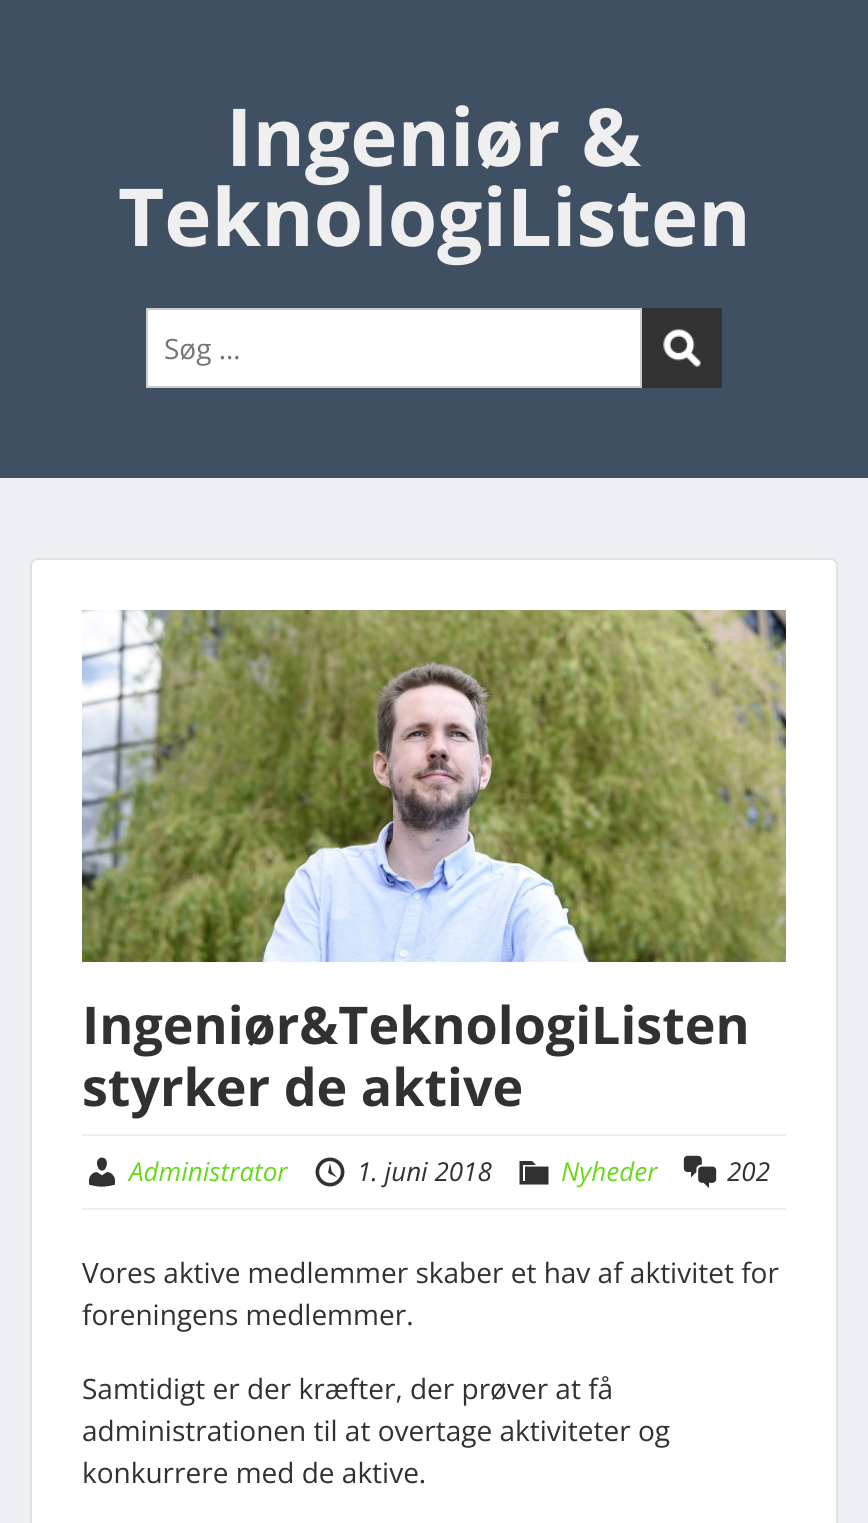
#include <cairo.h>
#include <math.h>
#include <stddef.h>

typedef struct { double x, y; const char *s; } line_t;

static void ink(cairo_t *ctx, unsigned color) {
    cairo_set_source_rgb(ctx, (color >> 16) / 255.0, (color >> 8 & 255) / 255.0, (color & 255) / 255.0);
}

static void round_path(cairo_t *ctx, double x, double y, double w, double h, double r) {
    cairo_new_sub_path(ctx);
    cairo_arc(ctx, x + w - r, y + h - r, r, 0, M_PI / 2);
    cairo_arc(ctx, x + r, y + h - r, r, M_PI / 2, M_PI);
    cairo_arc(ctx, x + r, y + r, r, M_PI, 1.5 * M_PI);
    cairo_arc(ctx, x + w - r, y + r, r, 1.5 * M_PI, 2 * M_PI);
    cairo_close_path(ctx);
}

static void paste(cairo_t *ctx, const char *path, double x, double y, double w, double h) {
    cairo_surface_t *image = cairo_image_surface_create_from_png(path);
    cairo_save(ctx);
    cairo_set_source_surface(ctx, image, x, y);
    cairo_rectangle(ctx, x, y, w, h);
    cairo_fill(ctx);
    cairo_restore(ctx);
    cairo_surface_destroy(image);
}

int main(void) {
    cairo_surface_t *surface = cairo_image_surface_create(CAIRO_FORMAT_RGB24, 868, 1523);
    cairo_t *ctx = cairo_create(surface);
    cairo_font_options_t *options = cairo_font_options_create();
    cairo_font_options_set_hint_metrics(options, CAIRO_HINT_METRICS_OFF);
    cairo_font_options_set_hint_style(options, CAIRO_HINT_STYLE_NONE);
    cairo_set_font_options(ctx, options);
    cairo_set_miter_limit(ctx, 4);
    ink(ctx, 0xECF0F5);
    cairo_paint(ctx);
    ink(ctx, 0x3E5062);
    cairo_rectangle(ctx, 0, 0, 868, 478);
    cairo_fill(ctx);
    cairo_select_font_face(ctx, "Open Sans", CAIRO_FONT_SLANT_NORMAL, CAIRO_FONT_WEIGHT_BOLD);
    cairo_set_font_size(ctx, 80);
    ink(ctx, 0xEFEFEF);
    cairo_move_to(ctx, 226, 166);
    cairo_show_text(ctx, "Ingeniør &");
    cairo_move_to(ctx, 118, 246);
    cairo_show_text(ctx, "TeknologiListen");
    ink(ctx, 0xFFFFFF);
    cairo_rectangle(ctx, 147, 309, 494, 78);
    cairo_fill_preserve(ctx);
    ink(ctx, 0xCCCCCC);
    cairo_stroke(ctx);
    cairo_select_font_face(ctx, "Open Sans", CAIRO_FONT_SLANT_NORMAL, CAIRO_FONT_WEIGHT_NORMAL);
    cairo_set_font_size(ctx, 28);
    ink(ctx, 0x757575);
    cairo_move_to(ctx, 164, 359);
    cairo_show_text(ctx, "Søg …");
    ink(ctx, 0x333333);
    cairo_rectangle(ctx, 642, 308, 80, 80);
    cairo_fill(ctx);
    paste(ctx, "media/1.png", 663, 329, 38, 38);
    ink(ctx, 0xFFFFFF);
    round_path(ctx, 30, 558, 808, 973, 8);
    cairo_fill(ctx);
    round_path(ctx, 31, 559, 806, 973, 7);
    cairo_set_source_rgba(ctx, 0, 0, 0, 0.12);
    cairo_stroke(ctx);
    paste(ctx, "media/2.png", 82, 610, 704, 352);
    cairo_select_font_face(ctx, "Open Sans", CAIRO_FONT_SLANT_NORMAL, CAIRO_FONT_WEIGHT_BOLD);
    cairo_set_font_size(ctx, 52);
    ink(ctx, 0x313131);
    cairo_move_to(ctx, 82, 1044);
    cairo_show_text(ctx, "Ingeniør&TeknologiListen");
    cairo_move_to(ctx, 82, 1106);
    cairo_show_text(ctx, "styrker de aktive");
    ink(ctx, 0xEEEEEE);
    cairo_rectangle(ctx, 82, 1134, 704, 2);
    cairo_fill(ctx);
    cairo_rectangle(ctx, 82, 1208, 704, 2);
    cairo_fill(ctx);
    paste(ctx, "media/3.png", 89, 1157, 26, 30);
    cairo_select_font_face(ctx, "Open Sans", CAIRO_FONT_SLANT_ITALIC, CAIRO_FONT_WEIGHT_NORMAL);
    cairo_set_font_size(ctx, 26);
    ink(ctx, 0x6AD61D);
    cairo_move_to(ctx, 129, 1181);
    cairo_show_text(ctx, "Administrator");
    paste(ctx, "media/4.png", 315, 1157, 30, 30);
    ink(ctx, 0x313131);
    cairo_move_to(ctx, 357, 1181);
    cairo_show_text(ctx, "1. juni 2018");
    cairo_new_path(ctx);
    cairo_move_to(ctx, 525, 1166.5);
    cairo_line_to(ctx, 548.5, 1166.5);
    cairo_line_to(ctx, 548.5, 1184.5);
    cairo_line_to(ctx, 519.5, 1184.5);
    cairo_line_to(ctx, 519.5, 1161);
    cairo_line_to(ctx, 532, 1161);
    cairo_line_to(ctx, 536, 1165);
    cairo_line_to(ctx, 523, 1165);
    cairo_line_to(ctx, 523, 1181);
    cairo_line_to(ctx, 525, 1181);
    cairo_close_path(ctx);
    cairo_fill(ctx);
    ink(ctx, 0x6AD61D);
    cairo_move_to(ctx, 561, 1181);
    cairo_show_text(ctx, "Nyheder");
    paste(ctx, "media/5.png", 683, 1155, 34, 33);
    ink(ctx, 0x313131);
    cairo_move_to(ctx, 727, 1181);
    cairo_show_text(ctx, "202");
    cairo_select_font_face(ctx, "Open Sans", CAIRO_FONT_SLANT_NORMAL, CAIRO_FONT_WEIGHT_NORMAL);
    cairo_set_font_size(ctx, 28);
    {
        static const line_t items[] = {
            {82, 1283, "Vores aktive medlemmer skaber et hav af aktivitet for"},
            {82, 1325, "foreningens medlemmer."},
            {82, 1399, "Samtidigt er der kræfter, der prøver at få"},
            {82, 1441, "administrationen til at overtage aktiviteter og"},
            {82, 1483, "konkurrere med de aktive."},
        };
        for (size_t i = 0; i < sizeof items / sizeof *items; i++) {
            cairo_move_to(ctx, items[i].x, items[i].y);
            cairo_show_text(ctx, items[i].s);
        }
    }
    cairo_surface_write_to_png(surface, "image.png");
    cairo_font_options_destroy(options);
    cairo_destroy(ctx);
    cairo_surface_destroy(surface);
    return 0;
}
